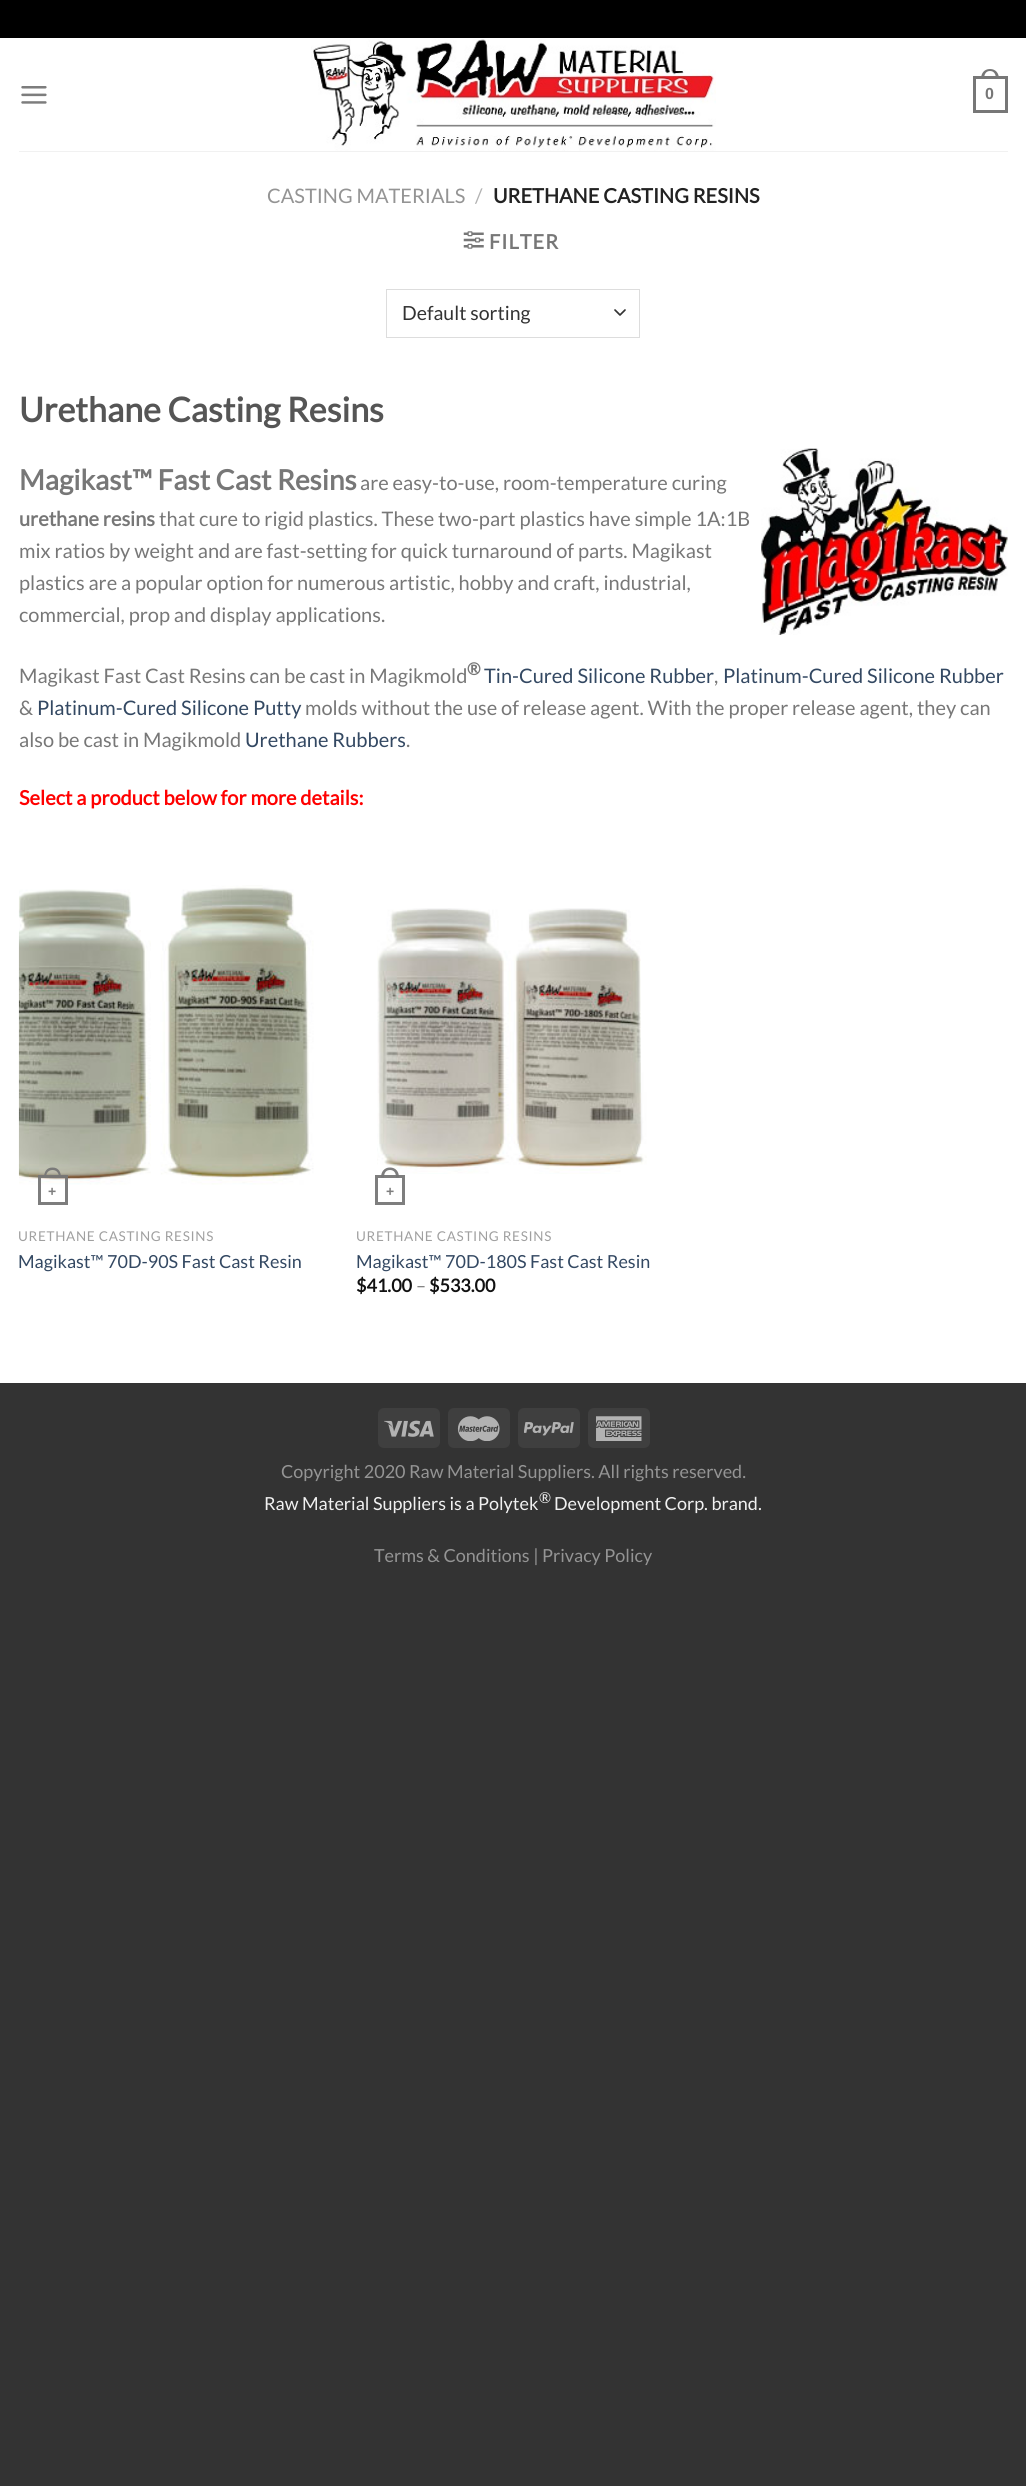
#include <cairo.h>
#include <math.h>
#include <stddef.h>

typedef struct { double x, y; const char *s; } line_t;

static void ink(cairo_t *ctx, unsigned color) {
    cairo_set_source_rgb(ctx, (color >> 16) / 255.0, (color >> 8 & 255) / 255.0, (color & 255) / 255.0);
}

static void write_spaced(cairo_t *ctx, double x, double y, const char *s, double letter, double word) {
    cairo_move_to(ctx, x, y);
    while (*s) {
        char ch[5] = {0};
        int n = 0;
        do ch[n++] = *s++; while ((*s & 0xC0) == 0x80);
        cairo_show_text(ctx, ch);
        cairo_rel_move_to(ctx, letter + word * (*ch == ' '), 0);
    }
}

static void round_path(cairo_t *ctx, double x, double y, double w, double h, double r) {
    cairo_new_sub_path(ctx);
    cairo_arc(ctx, x + w - r, y + h - r, r, 0, M_PI / 2);
    cairo_arc(ctx, x + r, y + h - r, r, M_PI / 2, M_PI);
    cairo_arc(ctx, x + r, y + r, r, M_PI, 1.5 * M_PI);
    cairo_arc(ctx, x + w - r, y + r, r, 1.5 * M_PI, 2 * M_PI);
    cairo_close_path(ctx);
}

static void paste(cairo_t *ctx, const char *path, double x, double y, double w, double h) {
    cairo_surface_t *image = cairo_image_surface_create_from_png(path);
    cairo_save(ctx);
    cairo_set_source_surface(ctx, image, x, y);
    cairo_rectangle(ctx, x, y, w, h);
    cairo_fill(ctx);
    cairo_restore(ctx);
    cairo_surface_destroy(image);
}

int main(void) {
    cairo_surface_t *surface = cairo_image_surface_create(CAIRO_FORMAT_RGB24, 1026, 2486);
    cairo_t *ctx = cairo_create(surface);
    cairo_font_options_t *options = cairo_font_options_create();
    cairo_font_options_set_hint_metrics(options, CAIRO_HINT_METRICS_OFF);
    cairo_font_options_set_hint_style(options, CAIRO_HINT_STYLE_NONE);
    cairo_set_font_options(ctx, options);
    cairo_set_miter_limit(ctx, 4);
    ink(ctx, 0x333333);
    cairo_paint(ctx);
    ink(ctx, 0xFFFFFF);
    cairo_rectangle(ctx, 0, 38, 1026, 1345);
    cairo_fill(ctx);
    ink(ctx, 0x000000);
    cairo_rectangle(ctx, 0, 0, 1026, 38);
    cairo_fill(ctx);
    paste(ctx, "media/1.png", 21, 86, 26, 18);
    paste(ctx, "media/2.png", 311, 39, 405, 112);
    cairo_rectangle(ctx, 974.5, 77.5, 32, 34);
    ink(ctx, 0x777777);
    cairo_set_line_width(ctx, 3);
    cairo_stroke(ctx);
    cairo_set_fill_rule(ctx, CAIRO_FILL_RULE_EVEN_ODD);
    cairo_new_path(ctx);
    cairo_move_to(ctx, 990, 69);
    cairo_curve_to(ctx, 996, 69, 999, 73.5, 999, 79);
    cairo_line_to(ctx, 981, 79);
    cairo_curve_to(ctx, 981, 73.5, 984, 69, 990, 69);
    cairo_close_path(ctx);
    cairo_move_to(ctx, 990, 71);
    cairo_curve_to(ctx, 994.5, 71, 996, 75, 996, 79);
    cairo_line_to(ctx, 984, 79);
    cairo_curve_to(ctx, 984, 75, 985.5, 71, 990, 71);
    cairo_close_path(ctx);
    cairo_fill(ctx);
    cairo_select_font_face(ctx, "Liberation Sans", CAIRO_FONT_SLANT_NORMAL, CAIRO_FONT_WEIGHT_BOLD);
    cairo_set_font_size(ctx, 16);
    cairo_move_to(ctx, 985, 99);
    cairo_show_text(ctx, "0");
    ink(ctx, 0xF1F1F1);
    cairo_rectangle(ctx, 19, 151, 989, 1);
    cairo_fill(ctx);
    cairo_select_font_face(ctx, "Lato", CAIRO_FONT_SLANT_NORMAL, CAIRO_FONT_WEIGHT_NORMAL);
    cairo_set_font_size(ctx, 20);
    ink(ctx, 0x949494);
    cairo_move_to(ctx, 267, 203);
    cairo_show_text(ctx, "CASTING MATERIALS");
    ink(ctx, 0xB2B2B2);
    cairo_move_to(ctx, 475, 203);
    cairo_show_text(ctx, "/");
    cairo_select_font_face(ctx, "Lato", CAIRO_FONT_SLANT_NORMAL, CAIRO_FONT_WEIGHT_BOLD);
    ink(ctx, 0x222222);
    cairo_move_to(ctx, 493, 203);
    cairo_show_text(ctx, "URETHANE CASTING RESINS");
    paste(ctx, "media/3.png", 463, 231, 21, 18);
    ink(ctx, 0x777777);
    write_spaced(ctx, 489, 249, "FILTER", 1, 0);
    cairo_new_path(ctx);
    cairo_move_to(ctx, 615, 310);
    cairo_line_to(ctx, 620, 315);
    cairo_line_to(ctx, 625, 310);
    ink(ctx, 0x333333);
    cairo_set_line_width(ctx, 1.7);
    cairo_set_line_cap(ctx, CAIRO_LINE_CAP_ROUND);
    cairo_set_line_join(ctx, CAIRO_LINE_JOIN_ROUND);
    cairo_stroke(ctx);
    cairo_rectangle(ctx, 386.5, 289.5, 253, 48);
    ink(ctx, 0xDDDDDD);
    cairo_set_line_width(ctx, 1);
    cairo_set_line_cap(ctx, CAIRO_LINE_CAP_BUTT);
    cairo_set_line_join(ctx, CAIRO_LINE_JOIN_MITER);
    cairo_stroke(ctx);
    cairo_select_font_face(ctx, "Lato", CAIRO_FONT_SLANT_NORMAL, CAIRO_FONT_WEIGHT_NORMAL);
    cairo_set_font_size(ctx, 19.5);
    ink(ctx, 0x333333);
    cairo_move_to(ctx, 402, 320);
    cairo_show_text(ctx, "Default sorting");
    cairo_select_font_face(ctx, "Lato", CAIRO_FONT_SLANT_NORMAL, CAIRO_FONT_WEIGHT_BOLD);
    cairo_set_font_size(ctx, 34);
    ink(ctx, 0x555555);
    cairo_move_to(ctx, 19, 422);
    cairo_show_text(ctx, "Urethane Casting Resins");
    cairo_set_font_size(ctx, 28);
    ink(ctx, 0x777777);
    cairo_move_to(ctx, 19, 490);
    cairo_show_text(ctx, "Magikast™ Fast Cast Resins");
    cairo_select_font_face(ctx, "Lato", CAIRO_FONT_SLANT_NORMAL, CAIRO_FONT_WEIGHT_NORMAL);
    cairo_set_font_size(ctx, 20);
    cairo_move_to(ctx, 360, 490);
    cairo_show_text(ctx, "are easy-to-use, room-temperature curing");
    cairo_select_font_face(ctx, "Lato", CAIRO_FONT_SLANT_NORMAL, CAIRO_FONT_WEIGHT_BOLD);
    cairo_move_to(ctx, 19, 526);
    cairo_show_text(ctx, "urethane resins");
    cairo_select_font_face(ctx, "Lato", CAIRO_FONT_SLANT_NORMAL, CAIRO_FONT_WEIGHT_NORMAL);
    {
        static const line_t items[] = {
            {159, 526, "that cure to rigid plastics. These two-part plastics have simple 1A:1B"},
            {19, 558, "mix ratios by weight and are fast-setting for quick turnaround of parts. Magikast"},
            {19, 590, "plastics are a popular option for numerous artistic, hobby and craft, industrial,"},
            {19, 622, "commercial, prop and display applications."},
        };
        for (size_t i = 0; i < sizeof items / sizeof *items; i++) {
            cairo_move_to(ctx, items[i].x, items[i].y);
            cairo_show_text(ctx, items[i].s);
        }
    }
    paste(ctx, "media/4.png", 761, 448, 247, 187);
    cairo_move_to(ctx, 19, 683);
    cairo_show_text(ctx, "Magikast Fast Cast Resins can be cast in Magikmold");
    cairo_select_font_face(ctx, "Lato", CAIRO_FONT_SLANT_NORMAL, CAIRO_FONT_WEIGHT_BOLD);
    cairo_set_font_size(ctx, 17);
    cairo_move_to(ctx, 467, 675);
    cairo_show_text(ctx, "®");
    cairo_select_font_face(ctx, "Lato", CAIRO_FONT_SLANT_NORMAL, CAIRO_FONT_WEIGHT_NORMAL);
    cairo_set_font_size(ctx, 20);
    ink(ctx, 0x334862);
    cairo_move_to(ctx, 484, 683);
    cairo_show_text(ctx, "Tin-Cured Silicone Rubber");
    ink(ctx, 0x777777);
    cairo_move_to(ctx, 714, 683);
    cairo_show_text(ctx, ",");
    ink(ctx, 0x334862);
    cairo_move_to(ctx, 723, 683);
    cairo_show_text(ctx, "Platinum-Cured Silicone Rubber");
    ink(ctx, 0x777777);
    cairo_move_to(ctx, 19, 715);
    cairo_show_text(ctx, "&");
    ink(ctx, 0x334862);
    cairo_move_to(ctx, 37, 715);
    cairo_show_text(ctx, "Platinum-Cured Silicone Putty");
    ink(ctx, 0x777777);
    cairo_move_to(ctx, 305, 715);
    cairo_show_text(ctx, "molds without the use of release agent. With the proper release agent, they can");
    cairo_move_to(ctx, 19, 747);
    cairo_show_text(ctx, "also be cast in Magikmold");
    ink(ctx, 0x334862);
    cairo_move_to(ctx, 245, 747);
    cairo_show_text(ctx, "Urethane Rubbers");
    ink(ctx, 0x777777);
    cairo_move_to(ctx, 406, 747);
    cairo_show_text(ctx, ".");
    cairo_select_font_face(ctx, "Lato", CAIRO_FONT_SLANT_NORMAL, CAIRO_FONT_WEIGHT_BOLD);
    ink(ctx, 0xFF0000);
    cairo_move_to(ctx, 19, 805);
    cairo_show_text(ctx, "Select a product below for more details:");
    paste(ctx, "media/5.png", 18, 885, 296, 300);
    cairo_rectangle(ctx, 39.5, 1176.5, 27, 27);
    cairo_set_source_rgba(ctx, 0.467, 0.467, 0.467, 0.95);
    cairo_set_line_width(ctx, 3);
    cairo_stroke(ctx);
    cairo_new_path(ctx);
    cairo_move_to(ctx, 52.5, 1167.5);
    cairo_curve_to(ctx, 58.5, 1167.5, 61, 1172, 61, 1177.5);
    cairo_line_to(ctx, 44, 1177.5);
    cairo_curve_to(ctx, 44, 1172, 46.5, 1167.5, 52.5, 1167.5);
    cairo_close_path(ctx);
    cairo_move_to(ctx, 52.5, 1170);
    cairo_curve_to(ctx, 57, 1170, 59, 1173.5, 59, 1177.5);
    cairo_line_to(ctx, 46, 1177.5);
    cairo_curve_to(ctx, 46, 1173.5, 48, 1170, 52.5, 1170);
    cairo_close_path(ctx);
    cairo_fill(ctx);
    cairo_select_font_face(ctx, "Liberation Sans", CAIRO_FONT_SLANT_NORMAL, CAIRO_FONT_WEIGHT_BOLD);
    cairo_set_font_size(ctx, 14);
    ink(ctx, 0x7E7E7E);
    cairo_move_to(ctx, 48, 1196);
    cairo_show_text(ctx, "+");
    cairo_select_font_face(ctx, "Lato", CAIRO_FONT_SLANT_NORMAL, CAIRO_FONT_WEIGHT_NORMAL);
    cairo_set_font_size(ctx, 13.5);
    ink(ctx, 0xA0A0A0);
    write_spaced(ctx, 18, 1241, "URETHANE CASTING RESINS", 0.7, 0);
    cairo_set_font_size(ctx, 18);
    ink(ctx, 0x334862);
    cairo_move_to(ctx, 18, 1268);
    cairo_show_text(ctx, "Magikast™ 70D-90S Fast Cast Resin");
    paste(ctx, "media/6.png", 377, 908, 270, 266);
    cairo_rectangle(ctx, 376.5, 1176.5, 27, 27);
    ink(ctx, 0x7E7E7E);
    cairo_stroke(ctx);
    cairo_set_source_rgba(ctx, 0.467, 0.467, 0.467, 0.95);
    cairo_new_path(ctx);
    cairo_move_to(ctx, 390, 1167.5);
    cairo_curve_to(ctx, 396, 1167.5, 399, 1172, 399, 1177.5);
    cairo_line_to(ctx, 381, 1177.5);
    cairo_curve_to(ctx, 381, 1172, 384, 1167.5, 390, 1167.5);
    cairo_close_path(ctx);
    cairo_move_to(ctx, 390, 1170);
    cairo_curve_to(ctx, 394.5, 1170, 396, 1173.5, 396, 1177.5);
    cairo_line_to(ctx, 384, 1177.5);
    cairo_curve_to(ctx, 384, 1173.5, 385.5, 1170, 390, 1170);
    cairo_close_path(ctx);
    cairo_fill(ctx);
    cairo_select_font_face(ctx, "Liberation Sans", CAIRO_FONT_SLANT_NORMAL, CAIRO_FONT_WEIGHT_BOLD);
    cairo_set_font_size(ctx, 14);
    ink(ctx, 0x7E7E7E);
    cairo_move_to(ctx, 386, 1196);
    cairo_show_text(ctx, "+");
    cairo_select_font_face(ctx, "Lato", CAIRO_FONT_SLANT_NORMAL, CAIRO_FONT_WEIGHT_NORMAL);
    cairo_set_font_size(ctx, 13.5);
    ink(ctx, 0xA0A0A0);
    write_spaced(ctx, 356, 1241, "URETHANE CASTING RESINS", 0.7, 0);
    cairo_set_font_size(ctx, 18);
    ink(ctx, 0x334862);
    cairo_move_to(ctx, 356, 1268);
    cairo_show_text(ctx, "Magikast™ 70D-180S Fast Cast Resin");
    cairo_select_font_face(ctx, "Lato", CAIRO_FONT_SLANT_NORMAL, CAIRO_FONT_WEIGHT_BOLD);
    ink(ctx, 0x111111);
    cairo_move_to(ctx, 356, 1292);
    cairo_show_text(ctx, "$41.00");
    cairo_select_font_face(ctx, "Lato", CAIRO_FONT_SLANT_NORMAL, CAIRO_FONT_WEIGHT_NORMAL);
    ink(ctx, 0x777777);
    cairo_move_to(ctx, 416, 1292);
    cairo_show_text(ctx, "–");
    cairo_select_font_face(ctx, "Lato", CAIRO_FONT_SLANT_NORMAL, CAIRO_FONT_WEIGHT_BOLD);
    ink(ctx, 0x111111);
    cairo_move_to(ctx, 429, 1292);
    cairo_show_text(ctx, "$533.00");
    ink(ctx, 0x3F3F3F);
    round_path(ctx, 378, 1408, 62, 40, 6);
    cairo_fill(ctx);
    paste(ctx, "media/7.png", 384, 1420, 50, 17);
    round_path(ctx, 448, 1408, 62, 40, 6);
    cairo_fill(ctx);
    paste(ctx, "media/8.png", 457, 1416, 43, 25);
    round_path(ctx, 518, 1408, 62, 40, 6);
    cairo_fill(ctx);
    paste(ctx, "media/9.png", 524, 1422, 50, 14);
    round_path(ctx, 588, 1408, 62, 40, 6);
    cairo_fill(ctx);
    paste(ctx, "media/10.png", 596, 1416, 46, 25);
    cairo_select_font_face(ctx, "Lato", CAIRO_FONT_SLANT_NORMAL, CAIRO_FONT_WEIGHT_NORMAL);
    ink(ctx, 0x949494);
    cairo_move_to(ctx, 281, 1478);
    cairo_show_text(ctx, "Copyright 2020 Raw Material Suppliers. All rights reserved.");
    ink(ctx, 0xF1F1F1);
    cairo_move_to(ctx, 264, 1510);
    cairo_show_text(ctx, "Raw Material Suppliers is a Polytek");
    cairo_set_font_size(ctx, 15);
    cairo_move_to(ctx, 539, 1503);
    cairo_show_text(ctx, "®");
    cairo_set_font_size(ctx, 18);
    cairo_move_to(ctx, 554, 1510);
    cairo_show_text(ctx, "Development Corp. brand.");
    ink(ctx, 0x949494);
    cairo_move_to(ctx, 374, 1562);
    cairo_show_text(ctx, "Terms & Conditions | Privacy Policy");
    cairo_surface_write_to_png(surface, "image.png");
    cairo_font_options_destroy(options);
    cairo_destroy(ctx);
    cairo_surface_destroy(surface);
    return 0;
}
